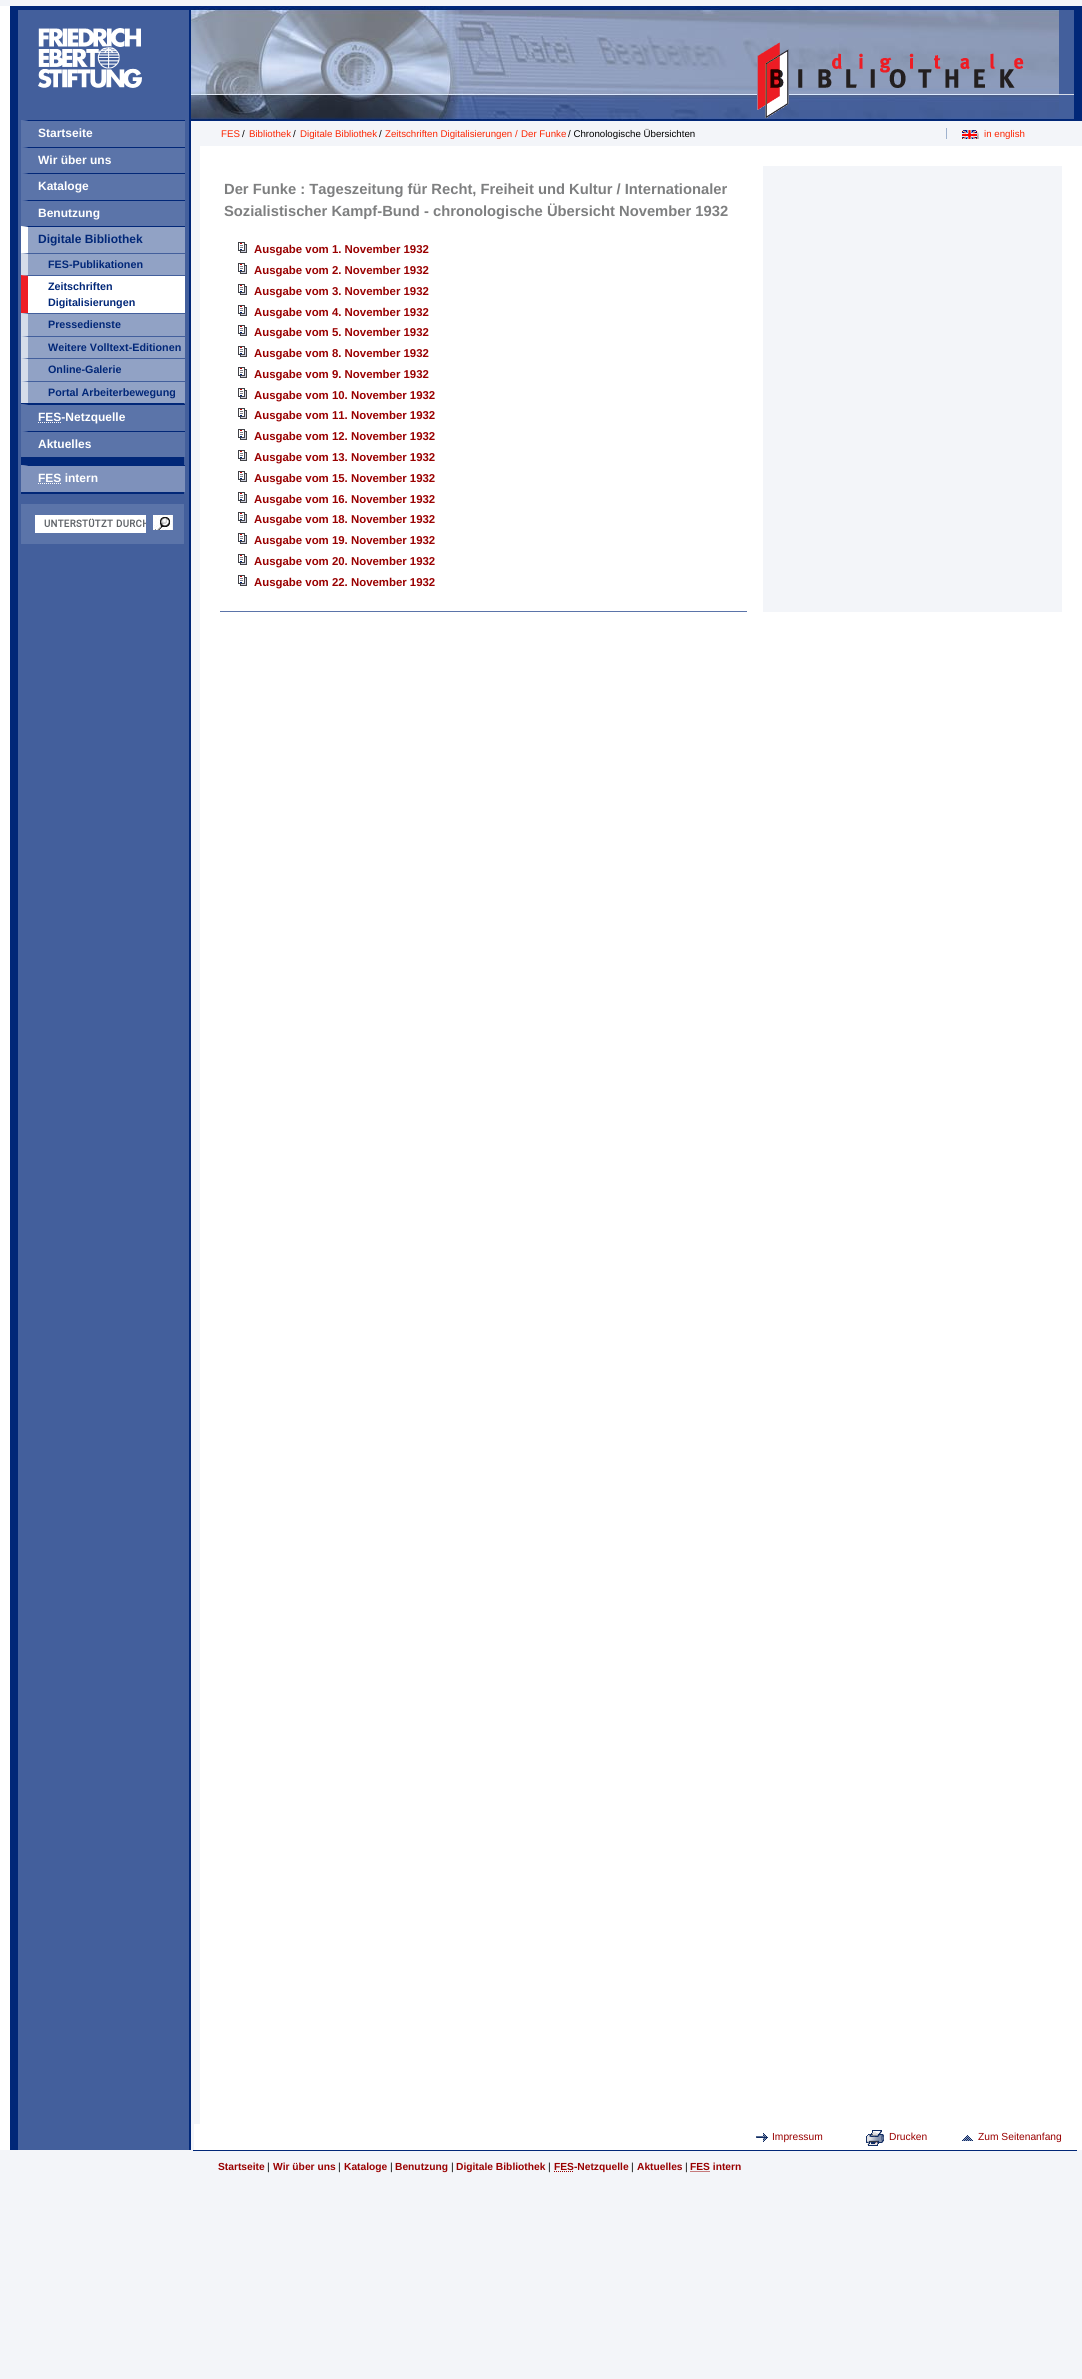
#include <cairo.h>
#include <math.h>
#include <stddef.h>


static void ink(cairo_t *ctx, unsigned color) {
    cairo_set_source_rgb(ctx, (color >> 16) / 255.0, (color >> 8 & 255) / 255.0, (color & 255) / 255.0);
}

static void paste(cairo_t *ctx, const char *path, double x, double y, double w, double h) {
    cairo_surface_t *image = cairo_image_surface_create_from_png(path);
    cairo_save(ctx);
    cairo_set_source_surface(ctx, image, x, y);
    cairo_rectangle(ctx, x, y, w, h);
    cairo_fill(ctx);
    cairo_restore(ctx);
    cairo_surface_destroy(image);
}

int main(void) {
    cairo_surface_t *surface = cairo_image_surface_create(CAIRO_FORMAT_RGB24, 1082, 2379);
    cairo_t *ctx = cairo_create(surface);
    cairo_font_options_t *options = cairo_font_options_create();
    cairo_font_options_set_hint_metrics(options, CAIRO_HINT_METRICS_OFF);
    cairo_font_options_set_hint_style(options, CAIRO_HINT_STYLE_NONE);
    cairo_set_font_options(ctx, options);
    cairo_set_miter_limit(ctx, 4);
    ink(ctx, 0xF3F5F9);
    cairo_paint(ctx);
    ink(ctx, 0xFFFFFF);
    cairo_rectangle(ctx, 0, 6, 1082, 2144);
    cairo_fill(ctx);
    paste(ctx, "media/1.png", 10, 121, 190, 2029);
    paste(ctx, "media/2.png", 10, 6, 1064, 115);
    ink(ctx, 0x012778);
    cairo_rectangle(ctx, 1074, 6, 8, 115);
    cairo_fill(ctx);
    paste(ctx, "media/3.png", 10, 10, 181, 111);
    paste(ctx, "media/4.png", 191, 6, 868, 114);
    paste(ctx, "media/5.png", 757, 42, 267, 76);
    cairo_rectangle(ctx, 21, 457, 163, 8);
    cairo_fill(ctx);
    ink(ctx, 0x5B74A9);
    cairo_rectangle(ctx, 21, 120, 164, 106);
    cairo_fill(ctx);
    ink(ctx, 0x012778);
    cairo_new_path(ctx);
    cairo_move_to(ctx, 21, 120);
    cairo_line_to(ctx, 185, 120);
    cairo_line_to(ctx, 185, 121);
    cairo_line_to(ctx, 28, 121);
    cairo_close_path(ctx);
    cairo_fill(ctx);
    ink(ctx, 0x5B74A9);
    cairo_new_path(ctx);
    cairo_move_to(ctx, 21, 147);
    cairo_line_to(ctx, 21, 120);
    cairo_line_to(ctx, 28, 121);
    cairo_line_to(ctx, 28, 147);
    cairo_close_path(ctx);
    cairo_fill(ctx);
    cairo_select_font_face(ctx, "Liberation Sans", CAIRO_FONT_SLANT_NORMAL, CAIRO_FONT_WEIGHT_BOLD);
    cairo_set_font_size(ctx, 12);
    ink(ctx, 0xFFFFFF);
    cairo_move_to(ctx, 38, 137);
    cairo_show_text(ctx, "Startseite");
    ink(ctx, 0x012778);
    cairo_new_path(ctx);
    cairo_move_to(ctx, 21, 147);
    cairo_line_to(ctx, 185, 147);
    cairo_line_to(ctx, 185, 148);
    cairo_line_to(ctx, 28, 148);
    cairo_close_path(ctx);
    cairo_fill(ctx);
    ink(ctx, 0x5B74A9);
    cairo_new_path(ctx);
    cairo_move_to(ctx, 21, 173);
    cairo_line_to(ctx, 21, 147);
    cairo_line_to(ctx, 28, 148);
    cairo_line_to(ctx, 28, 173);
    cairo_close_path(ctx);
    cairo_fill(ctx);
    ink(ctx, 0xFFFFFF);
    cairo_move_to(ctx, 38, 164);
    cairo_show_text(ctx, "Wir über uns");
    ink(ctx, 0x012778);
    cairo_new_path(ctx);
    cairo_move_to(ctx, 21, 173);
    cairo_line_to(ctx, 185, 173);
    cairo_line_to(ctx, 185, 174);
    cairo_line_to(ctx, 28, 174);
    cairo_close_path(ctx);
    cairo_fill(ctx);
    ink(ctx, 0x5B74A9);
    cairo_new_path(ctx);
    cairo_move_to(ctx, 21, 200);
    cairo_line_to(ctx, 21, 173);
    cairo_line_to(ctx, 28, 174);
    cairo_line_to(ctx, 28, 200);
    cairo_close_path(ctx);
    cairo_fill(ctx);
    ink(ctx, 0xFFFFFF);
    cairo_move_to(ctx, 38, 190);
    cairo_show_text(ctx, "Kataloge");
    ink(ctx, 0x012778);
    cairo_new_path(ctx);
    cairo_move_to(ctx, 21, 200);
    cairo_line_to(ctx, 185, 200);
    cairo_line_to(ctx, 185, 201);
    cairo_line_to(ctx, 28, 201);
    cairo_close_path(ctx);
    cairo_fill(ctx);
    ink(ctx, 0x5B74A9);
    cairo_new_path(ctx);
    cairo_move_to(ctx, 21, 226);
    cairo_line_to(ctx, 21, 200);
    cairo_line_to(ctx, 28, 201);
    cairo_line_to(ctx, 28, 226);
    cairo_close_path(ctx);
    cairo_fill(ctx);
    ink(ctx, 0xFFFFFF);
    cairo_move_to(ctx, 38, 217);
    cairo_show_text(ctx, "Benutzung");
    ink(ctx, 0x91A2C5);
    cairo_rectangle(ctx, 21, 226, 164, 49);
    cairo_fill(ctx);
    ink(ctx, 0x012778);
    cairo_new_path(ctx);
    cairo_move_to(ctx, 21, 226);
    cairo_line_to(ctx, 185, 226);
    cairo_line_to(ctx, 185, 227);
    cairo_line_to(ctx, 28, 227);
    cairo_close_path(ctx);
    cairo_fill(ctx);
    ink(ctx, 0xFFFFFF);
    cairo_new_path(ctx);
    cairo_move_to(ctx, 21, 253);
    cairo_line_to(ctx, 21, 226);
    cairo_line_to(ctx, 28, 227);
    cairo_line_to(ctx, 28, 253);
    cairo_close_path(ctx);
    cairo_fill(ctx);
    ink(ctx, 0x012778);
    cairo_move_to(ctx, 38, 243);
    cairo_show_text(ctx, "Digitale Bibliothek");
    cairo_rectangle(ctx, 21, 403, 163, 1);
    cairo_fill(ctx);
    ink(ctx, 0x435F9C);
    cairo_new_path(ctx);
    cairo_move_to(ctx, 21, 253);
    cairo_line_to(ctx, 185, 253);
    cairo_line_to(ctx, 185, 254);
    cairo_line_to(ctx, 28, 254);
    cairo_close_path(ctx);
    cairo_fill(ctx);
    ink(ctx, 0xD6DCE9);
    cairo_new_path(ctx);
    cairo_move_to(ctx, 21, 275);
    cairo_line_to(ctx, 21, 253);
    cairo_line_to(ctx, 28, 254);
    cairo_line_to(ctx, 28, 275);
    cairo_close_path(ctx);
    cairo_fill(ctx);
    cairo_set_font_size(ctx, 10.75);
    ink(ctx, 0x012778);
    cairo_move_to(ctx, 48, 268);
    cairo_show_text(ctx, "FES-Publikationen");
    ink(ctx, 0xFFFFFF);
    cairo_rectangle(ctx, 21, 275, 164, 38);
    cairo_fill(ctx);
    ink(ctx, 0x435F9C);
    cairo_new_path(ctx);
    cairo_move_to(ctx, 21, 275);
    cairo_line_to(ctx, 185, 275);
    cairo_line_to(ctx, 185, 276);
    cairo_line_to(ctx, 28, 276);
    cairo_close_path(ctx);
    cairo_fill(ctx);
    ink(ctx, 0xEE1D25);
    cairo_new_path(ctx);
    cairo_move_to(ctx, 21, 313);
    cairo_line_to(ctx, 21, 275);
    cairo_line_to(ctx, 28, 276);
    cairo_line_to(ctx, 28, 313);
    cairo_close_path(ctx);
    cairo_fill(ctx);
    ink(ctx, 0x012778);
    cairo_move_to(ctx, 48, 290);
    cairo_show_text(ctx, "Zeitschriften");
    cairo_move_to(ctx, 48, 306);
    cairo_show_text(ctx, "Digitalisierungen");
    ink(ctx, 0x91A2C5);
    cairo_rectangle(ctx, 21, 313, 164, 90);
    cairo_fill(ctx);
    ink(ctx, 0x435F9C);
    cairo_new_path(ctx);
    cairo_move_to(ctx, 21, 313);
    cairo_line_to(ctx, 185, 313);
    cairo_line_to(ctx, 185, 314);
    cairo_line_to(ctx, 28, 314);
    cairo_close_path(ctx);
    cairo_fill(ctx);
    ink(ctx, 0xD6DCE9);
    cairo_new_path(ctx);
    cairo_move_to(ctx, 21, 336);
    cairo_line_to(ctx, 21, 313);
    cairo_line_to(ctx, 28, 314);
    cairo_line_to(ctx, 28, 336);
    cairo_close_path(ctx);
    cairo_fill(ctx);
    ink(ctx, 0x012778);
    cairo_move_to(ctx, 48, 328);
    cairo_show_text(ctx, "Pressedienste");
    ink(ctx, 0x435F9C);
    cairo_new_path(ctx);
    cairo_move_to(ctx, 21, 336);
    cairo_line_to(ctx, 185, 336);
    cairo_line_to(ctx, 185, 337);
    cairo_line_to(ctx, 28, 337);
    cairo_close_path(ctx);
    cairo_fill(ctx);
    ink(ctx, 0xD6DCE9);
    cairo_new_path(ctx);
    cairo_move_to(ctx, 21, 358);
    cairo_line_to(ctx, 21, 336);
    cairo_line_to(ctx, 28, 337);
    cairo_line_to(ctx, 28, 358);
    cairo_close_path(ctx);
    cairo_fill(ctx);
    ink(ctx, 0x012778);
    cairo_move_to(ctx, 48, 351);
    cairo_show_text(ctx, "Weitere Volltext-Editionen");
    ink(ctx, 0x435F9C);
    cairo_new_path(ctx);
    cairo_move_to(ctx, 21, 358);
    cairo_line_to(ctx, 185, 358);
    cairo_line_to(ctx, 185, 359);
    cairo_line_to(ctx, 28, 359);
    cairo_close_path(ctx);
    cairo_fill(ctx);
    ink(ctx, 0xD6DCE9);
    cairo_new_path(ctx);
    cairo_move_to(ctx, 21, 381);
    cairo_line_to(ctx, 21, 358);
    cairo_line_to(ctx, 28, 359);
    cairo_line_to(ctx, 28, 381);
    cairo_close_path(ctx);
    cairo_fill(ctx);
    ink(ctx, 0x012778);
    cairo_move_to(ctx, 48, 373);
    cairo_show_text(ctx, "Online-Galerie");
    ink(ctx, 0x435F9C);
    cairo_new_path(ctx);
    cairo_move_to(ctx, 21, 381);
    cairo_line_to(ctx, 185, 381);
    cairo_line_to(ctx, 185, 382);
    cairo_line_to(ctx, 28, 382);
    cairo_close_path(ctx);
    cairo_fill(ctx);
    ink(ctx, 0xD6DCE9);
    cairo_new_path(ctx);
    cairo_move_to(ctx, 21, 403);
    cairo_line_to(ctx, 21, 381);
    cairo_line_to(ctx, 28, 382);
    cairo_line_to(ctx, 28, 403);
    cairo_close_path(ctx);
    cairo_fill(ctx);
    ink(ctx, 0x012778);
    cairo_move_to(ctx, 48, 396);
    cairo_show_text(ctx, "Portal Arbeiterbewegung");
    ink(ctx, 0x5B74A9);
    cairo_rectangle(ctx, 21, 404, 164, 53);
    cairo_fill(ctx);
    ink(ctx, 0x012778);
    cairo_new_path(ctx);
    cairo_move_to(ctx, 21, 404);
    cairo_line_to(ctx, 185, 404);
    cairo_line_to(ctx, 185, 405);
    cairo_line_to(ctx, 28, 405);
    cairo_close_path(ctx);
    cairo_fill(ctx);
    ink(ctx, 0x5B74A9);
    cairo_new_path(ctx);
    cairo_move_to(ctx, 21, 431);
    cairo_line_to(ctx, 21, 404);
    cairo_line_to(ctx, 28, 405);
    cairo_line_to(ctx, 28, 431);
    cairo_close_path(ctx);
    cairo_fill(ctx);
    cairo_new_path(ctx);
    cairo_move_to(ctx, 38, 422.5);
    cairo_line_to(ctx, 61, 422.5);
    ink(ctx, 0xFFFFFF);
    cairo_set_line_width(ctx, 1);
    cairo_set_dash(ctx, (double[]){1, 1}, 2, 0);
    cairo_stroke(ctx);
    cairo_set_font_size(ctx, 12);
    cairo_move_to(ctx, 38, 421);
    cairo_show_text(ctx, "FES-Netzquelle");
    ink(ctx, 0x012778);
    cairo_new_path(ctx);
    cairo_move_to(ctx, 21, 431);
    cairo_line_to(ctx, 185, 431);
    cairo_line_to(ctx, 185, 432);
    cairo_line_to(ctx, 28, 432);
    cairo_close_path(ctx);
    cairo_fill(ctx);
    ink(ctx, 0x5B74A9);
    cairo_new_path(ctx);
    cairo_move_to(ctx, 21, 457);
    cairo_line_to(ctx, 21, 431);
    cairo_line_to(ctx, 28, 432);
    cairo_line_to(ctx, 28, 457);
    cairo_close_path(ctx);
    cairo_fill(ctx);
    ink(ctx, 0xFFFFFF);
    cairo_move_to(ctx, 38, 448);
    cairo_show_text(ctx, "Aktuelles");
    ink(ctx, 0x012778);
    cairo_rectangle(ctx, 21, 492, 163, 2);
    cairo_fill(ctx);
    ink(ctx, 0x7E91BB);
    cairo_rectangle(ctx, 21, 465, 164, 27);
    cairo_fill(ctx);
    ink(ctx, 0x012778);
    cairo_new_path(ctx);
    cairo_move_to(ctx, 21, 465);
    cairo_line_to(ctx, 185, 465);
    cairo_line_to(ctx, 185, 466);
    cairo_line_to(ctx, 28, 466);
    cairo_close_path(ctx);
    cairo_fill(ctx);
    ink(ctx, 0x7E91BB);
    cairo_new_path(ctx);
    cairo_move_to(ctx, 21, 492);
    cairo_line_to(ctx, 21, 465);
    cairo_line_to(ctx, 28, 466);
    cairo_line_to(ctx, 28, 492);
    cairo_close_path(ctx);
    cairo_fill(ctx);
    ink(ctx, 0xFFFFFF);
    cairo_move_to(ctx, 38, 482);
    cairo_show_text(ctx, "FES intern");
    cairo_new_path(ctx);
    cairo_move_to(ctx, 38, 483.5);
    cairo_line_to(ctx, 61, 483.5);
    cairo_stroke(ctx);
    ink(ctx, 0x5B74A9);
    cairo_rectangle(ctx, 21, 504, 163, 40);
    cairo_fill(ctx);
    ink(ctx, 0xFFFFFF);
    cairo_rectangle(ctx, 35, 515, 111, 18);
    cairo_fill(ctx);
    paste(ctx, "media/6.png", 44, 518, 102, 9);
    ink(ctx, 0xF3F5F9);
    cairo_rectangle(ctx, 172, 515, 1, 15);
    cairo_fill(ctx);
    paste(ctx, "media/7.png", 153, 515, 19, 15);
    cairo_rectangle(ctx, 200, 121, 882, 25);
    cairo_fill(ctx);
    cairo_select_font_face(ctx, "Liberation Sans", CAIRO_FONT_SLANT_NORMAL, CAIRO_FONT_WEIGHT_NORMAL);
    cairo_set_font_size(ctx, 9.7);
    ink(ctx, 0xFC2603);
    cairo_move_to(ctx, 221, 137);
    cairo_show_text(ctx, "FES");
    ink(ctx, 0x000000);
    cairo_move_to(ctx, 242, 137);
    cairo_show_text(ctx, "/");
    ink(ctx, 0xFC2603);
    cairo_move_to(ctx, 249, 137);
    cairo_show_text(ctx, "Bibliothek");
    ink(ctx, 0x000000);
    cairo_move_to(ctx, 293, 137);
    cairo_show_text(ctx, "/");
    ink(ctx, 0xFC2603);
    cairo_move_to(ctx, 300, 137);
    cairo_show_text(ctx, "Digitale Bibliothek");
    ink(ctx, 0x000000);
    cairo_move_to(ctx, 379, 137);
    cairo_show_text(ctx, "/");
    ink(ctx, 0xFC2603);
    cairo_move_to(ctx, 385, 137);
    cairo_show_text(ctx, "Zeitschriften Digitalisierungen /");
    cairo_move_to(ctx, 521, 137);
    cairo_show_text(ctx, "Der Funke");
    ink(ctx, 0x000000);
    cairo_move_to(ctx, 568, 137);
    cairo_show_text(ctx, "/ Chronologische Übersichten");
    ink(ctx, 0x9FB2CE);
    cairo_rectangle(ctx, 946, 128, 1, 11);
    cairo_fill(ctx);
    paste(ctx, "media/8.png", 962, 130, 17, 9);
    ink(ctx, 0xFC2603);
    cairo_move_to(ctx, 984, 137);
    cairo_show_text(ctx, "in english");
    ink(ctx, 0xF3F5F9);
    cairo_rectangle(ctx, 763, 166, 299, 446);
    cairo_fill(ctx);
    ink(ctx, 0x5B74A9);
    cairo_rectangle(ctx, 220, 611, 527, 1);
    cairo_fill(ctx);
    cairo_select_font_face(ctx, "Liberation Sans", CAIRO_FONT_SLANT_NORMAL, CAIRO_FONT_WEIGHT_BOLD);
    cairo_set_font_size(ctx, 14.75);
    ink(ctx, 0x7E7F80);
    cairo_move_to(ctx, 224, 194);
    cairo_show_text(ctx, "Der Funke : Tageszeitung für Recht, Freiheit und Kultur / Internationaler");
    cairo_move_to(ctx, 224, 216);
    cairo_show_text(ctx, "Sozialistischer Kampf-Bund - chronologische Übersicht November 1932");
    paste(ctx, "media/9.png", 238, 242, 9, 11);
    cairo_set_font_size(ctx, 11.4);
    ink(ctx, 0x990000);
    cairo_move_to(ctx, 254, 253);
    cairo_show_text(ctx, "Ausgabe vom 1. November 1932");
    paste(ctx, "media/9.png", 238, 263, 9, 11);
    cairo_move_to(ctx, 254, 274);
    cairo_show_text(ctx, "Ausgabe vom 2. November 1932");
    paste(ctx, "media/9.png", 238, 284, 9, 11);
    cairo_move_to(ctx, 254, 295);
    cairo_show_text(ctx, "Ausgabe vom 3. November 1932");
    paste(ctx, "media/9.png", 238, 305, 9, 11);
    cairo_move_to(ctx, 254, 316);
    cairo_show_text(ctx, "Ausgabe vom 4. November 1932");
    paste(ctx, "media/9.png", 238, 325, 9, 11);
    cairo_move_to(ctx, 254, 336);
    cairo_show_text(ctx, "Ausgabe vom 5. November 1932");
    paste(ctx, "media/9.png", 238, 346, 9, 11);
    cairo_move_to(ctx, 254, 357);
    cairo_show_text(ctx, "Ausgabe vom 8. November 1932");
    paste(ctx, "media/9.png", 238, 367, 9, 11);
    cairo_move_to(ctx, 254, 378);
    cairo_show_text(ctx, "Ausgabe vom 9. November 1932");
    paste(ctx, "media/9.png", 238, 388, 9, 11);
    cairo_move_to(ctx, 254, 399);
    cairo_show_text(ctx, "Ausgabe vom 10. November 1932");
    paste(ctx, "media/9.png", 238, 408, 9, 11);
    cairo_move_to(ctx, 254, 419);
    cairo_show_text(ctx, "Ausgabe vom 11. November 1932");
    paste(ctx, "media/9.png", 238, 429, 9, 11);
    cairo_move_to(ctx, 254, 440);
    cairo_show_text(ctx, "Ausgabe vom 12. November 1932");
    paste(ctx, "media/9.png", 238, 450, 9, 11);
    cairo_move_to(ctx, 254, 461);
    cairo_show_text(ctx, "Ausgabe vom 13. November 1932");
    paste(ctx, "media/9.png", 238, 471, 9, 11);
    cairo_move_to(ctx, 254, 482);
    cairo_show_text(ctx, "Ausgabe vom 15. November 1932");
    paste(ctx, "media/9.png", 238, 492, 9, 11);
    cairo_move_to(ctx, 254, 503);
    cairo_show_text(ctx, "Ausgabe vom 16. November 1932");
    paste(ctx, "media/9.png", 238, 512, 9, 11);
    cairo_move_to(ctx, 254, 523);
    cairo_show_text(ctx, "Ausgabe vom 18. November 1932");
    paste(ctx, "media/9.png", 238, 533, 9, 11);
    cairo_move_to(ctx, 254, 544);
    cairo_show_text(ctx, "Ausgabe vom 19. November 1932");
    paste(ctx, "media/9.png", 238, 554, 9, 11);
    cairo_move_to(ctx, 254, 565);
    cairo_show_text(ctx, "Ausgabe vom 20. November 1932");
    paste(ctx, "media/9.png", 238, 575, 9, 11);
    cairo_move_to(ctx, 254, 586);
    cairo_show_text(ctx, "Ausgabe vom 22. November 1932");
    ink(ctx, 0xFFFFFF);
    cairo_rectangle(ctx, 194, 2124, 6, 26);
    cairo_fill(ctx);
    paste(ctx, "media/10.png", 756, 2133, 12, 9);
    cairo_select_font_face(ctx, "Liberation Sans", CAIRO_FONT_SLANT_NORMAL, CAIRO_FONT_WEIGHT_NORMAL);
    cairo_set_font_size(ctx, 10.25);
    ink(ctx, 0x990000);
    cairo_move_to(ctx, 772, 2140);
    cairo_show_text(ctx, "Impressum");
    paste(ctx, "media/11.png", 866, 2130, 18, 16);
    cairo_move_to(ctx, 889, 2140);
    cairo_show_text(ctx, "Drucken");
    paste(ctx, "media/12.png", 962, 2135, 11, 6);
    cairo_move_to(ctx, 978, 2140);
    cairo_show_text(ctx, "Zum Seitenanfang");
    ink(ctx, 0x012778);
    cairo_rectangle(ctx, 193, 2150, 884, 1);
    cairo_fill(ctx);
    cairo_select_font_face(ctx, "Liberation Sans", CAIRO_FONT_SLANT_NORMAL, CAIRO_FONT_WEIGHT_BOLD);
    ink(ctx, 0x990000);
    cairo_move_to(ctx, 218, 2170);
    cairo_show_text(ctx, "Startseite");
    cairo_select_font_face(ctx, "Liberation Sans", CAIRO_FONT_SLANT_NORMAL, CAIRO_FONT_WEIGHT_NORMAL);
    ink(ctx, 0x000000);
    cairo_move_to(ctx, 267, 2170);
    cairo_show_text(ctx, "|");
    cairo_select_font_face(ctx, "Liberation Sans", CAIRO_FONT_SLANT_NORMAL, CAIRO_FONT_WEIGHT_BOLD);
    ink(ctx, 0x990000);
    cairo_move_to(ctx, 273, 2170);
    cairo_show_text(ctx, "Wir über uns");
    cairo_select_font_face(ctx, "Liberation Sans", CAIRO_FONT_SLANT_NORMAL, CAIRO_FONT_WEIGHT_NORMAL);
    ink(ctx, 0x000000);
    cairo_move_to(ctx, 338, 2170);
    cairo_show_text(ctx, "|");
    cairo_select_font_face(ctx, "Liberation Sans", CAIRO_FONT_SLANT_NORMAL, CAIRO_FONT_WEIGHT_BOLD);
    ink(ctx, 0x990000);
    cairo_move_to(ctx, 344, 2170);
    cairo_show_text(ctx, "Kataloge");
    cairo_select_font_face(ctx, "Liberation Sans", CAIRO_FONT_SLANT_NORMAL, CAIRO_FONT_WEIGHT_NORMAL);
    ink(ctx, 0x000000);
    cairo_move_to(ctx, 390, 2170);
    cairo_show_text(ctx, "|");
    cairo_select_font_face(ctx, "Liberation Sans", CAIRO_FONT_SLANT_NORMAL, CAIRO_FONT_WEIGHT_BOLD);
    ink(ctx, 0x990000);
    cairo_move_to(ctx, 395, 2170);
    cairo_show_text(ctx, "Benutzung");
    cairo_select_font_face(ctx, "Liberation Sans", CAIRO_FONT_SLANT_NORMAL, CAIRO_FONT_WEIGHT_NORMAL);
    ink(ctx, 0x000000);
    cairo_move_to(ctx, 451, 2170);
    cairo_show_text(ctx, "|");
    cairo_select_font_face(ctx, "Liberation Sans", CAIRO_FONT_SLANT_NORMAL, CAIRO_FONT_WEIGHT_BOLD);
    ink(ctx, 0x990000);
    cairo_move_to(ctx, 456, 2170);
    cairo_show_text(ctx, "Digitale Bibliothek");
    cairo_select_font_face(ctx, "Liberation Sans", CAIRO_FONT_SLANT_NORMAL, CAIRO_FONT_WEIGHT_NORMAL);
    ink(ctx, 0x000000);
    cairo_move_to(ctx, 548, 2170);
    cairo_show_text(ctx, "|");
    cairo_new_path(ctx);
    cairo_move_to(ctx, 554, 2171.5);
    cairo_line_to(ctx, 573.5, 2171.5);
    ink(ctx, 0x990000);
    cairo_stroke(ctx);
    cairo_select_font_face(ctx, "Liberation Sans", CAIRO_FONT_SLANT_NORMAL, CAIRO_FONT_WEIGHT_BOLD);
    cairo_move_to(ctx, 554, 2170);
    cairo_show_text(ctx, "FES-Netzquelle");
    cairo_select_font_face(ctx, "Liberation Sans", CAIRO_FONT_SLANT_NORMAL, CAIRO_FONT_WEIGHT_NORMAL);
    ink(ctx, 0x000000);
    cairo_move_to(ctx, 631, 2170);
    cairo_show_text(ctx, "|");
    cairo_select_font_face(ctx, "Liberation Sans", CAIRO_FONT_SLANT_NORMAL, CAIRO_FONT_WEIGHT_BOLD);
    ink(ctx, 0x990000);
    cairo_move_to(ctx, 637, 2170);
    cairo_show_text(ctx, "Aktuelles");
    cairo_select_font_face(ctx, "Liberation Sans", CAIRO_FONT_SLANT_NORMAL, CAIRO_FONT_WEIGHT_NORMAL);
    ink(ctx, 0x000000);
    cairo_move_to(ctx, 685, 2170);
    cairo_show_text(ctx, "|");
    cairo_select_font_face(ctx, "Liberation Sans", CAIRO_FONT_SLANT_NORMAL, CAIRO_FONT_WEIGHT_BOLD);
    ink(ctx, 0x990000);
    cairo_move_to(ctx, 690, 2170);
    cairo_show_text(ctx, "FES intern");
    cairo_new_path(ctx);
    cairo_move_to(ctx, 690.5, 2171.5);
    cairo_line_to(ctx, 710, 2171.5);
    cairo_stroke(ctx);
    cairo_surface_write_to_png(surface, "image.png");
    cairo_font_options_destroy(options);
    cairo_destroy(ctx);
    cairo_surface_destroy(surface);
    return 0;
}
